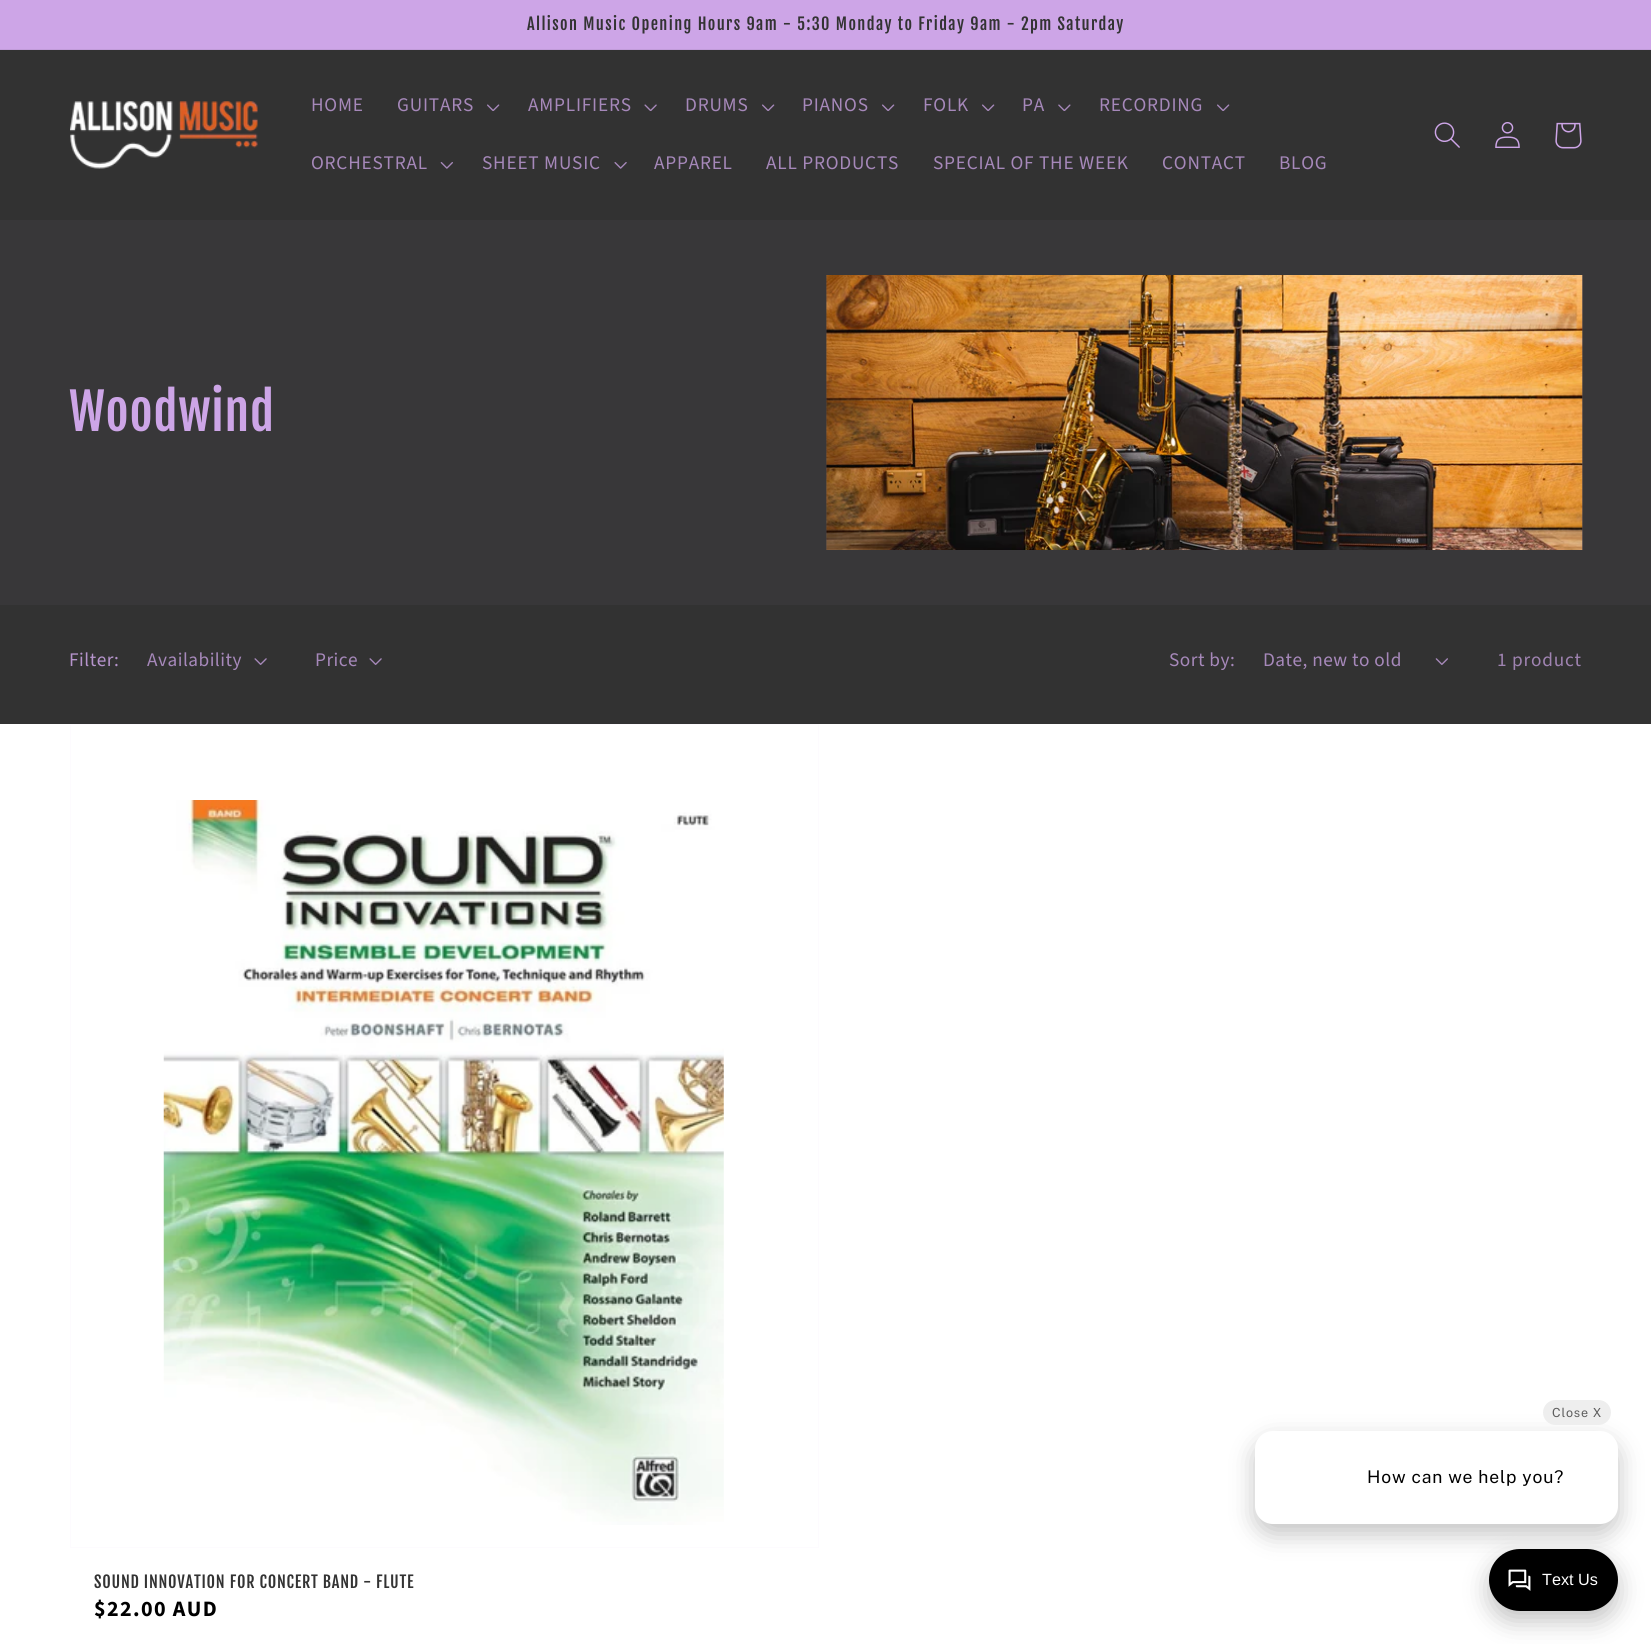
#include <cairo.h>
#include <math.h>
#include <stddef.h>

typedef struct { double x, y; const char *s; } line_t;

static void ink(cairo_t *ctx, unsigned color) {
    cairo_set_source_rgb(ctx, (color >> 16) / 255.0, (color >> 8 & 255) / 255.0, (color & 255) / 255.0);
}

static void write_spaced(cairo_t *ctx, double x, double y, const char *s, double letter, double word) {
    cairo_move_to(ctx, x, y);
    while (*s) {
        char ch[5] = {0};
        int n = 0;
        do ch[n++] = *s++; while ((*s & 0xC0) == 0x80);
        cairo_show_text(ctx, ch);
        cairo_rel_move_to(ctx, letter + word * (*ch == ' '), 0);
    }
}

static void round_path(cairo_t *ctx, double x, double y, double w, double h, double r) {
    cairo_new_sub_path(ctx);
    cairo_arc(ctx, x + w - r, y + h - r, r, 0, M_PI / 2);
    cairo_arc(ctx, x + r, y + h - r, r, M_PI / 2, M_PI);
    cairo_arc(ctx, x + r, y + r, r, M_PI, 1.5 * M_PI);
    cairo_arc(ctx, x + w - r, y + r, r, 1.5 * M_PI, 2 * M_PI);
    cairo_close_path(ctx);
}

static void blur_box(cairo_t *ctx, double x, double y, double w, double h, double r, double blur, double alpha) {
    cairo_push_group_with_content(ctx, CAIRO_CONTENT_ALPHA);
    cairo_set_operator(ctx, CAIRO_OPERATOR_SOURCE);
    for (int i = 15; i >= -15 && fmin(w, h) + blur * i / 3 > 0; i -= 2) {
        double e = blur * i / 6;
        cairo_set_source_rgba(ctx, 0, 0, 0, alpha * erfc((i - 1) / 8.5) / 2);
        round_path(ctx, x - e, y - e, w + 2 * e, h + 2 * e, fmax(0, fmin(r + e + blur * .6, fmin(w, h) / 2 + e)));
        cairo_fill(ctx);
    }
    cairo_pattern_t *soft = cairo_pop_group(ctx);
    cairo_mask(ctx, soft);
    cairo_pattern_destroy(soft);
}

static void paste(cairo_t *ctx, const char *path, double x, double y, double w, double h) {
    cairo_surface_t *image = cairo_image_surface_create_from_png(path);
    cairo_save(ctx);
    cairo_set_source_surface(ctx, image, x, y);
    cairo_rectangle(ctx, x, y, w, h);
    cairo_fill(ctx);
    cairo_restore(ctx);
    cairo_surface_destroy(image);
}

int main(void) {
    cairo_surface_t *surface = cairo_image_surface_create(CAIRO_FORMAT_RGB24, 1651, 1644);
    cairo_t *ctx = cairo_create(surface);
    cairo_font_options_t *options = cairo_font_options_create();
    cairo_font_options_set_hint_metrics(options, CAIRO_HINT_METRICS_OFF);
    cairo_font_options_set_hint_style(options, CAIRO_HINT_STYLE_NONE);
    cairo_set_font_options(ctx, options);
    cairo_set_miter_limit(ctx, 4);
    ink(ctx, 0x323232);
    cairo_paint(ctx);
    ink(ctx, 0xCDA5E7);
    cairo_rectangle(ctx, 0, 0, 1651, 49);
    cairo_fill(ctx);
    ink(ctx, 0xC19CD9);
    cairo_rectangle(ctx, 0, 49, 1651, 1);
    cairo_fill(ctx);
    cairo_select_font_face(ctx, "Fjalla One", CAIRO_FONT_SLANT_NORMAL, CAIRO_FONT_WEIGHT_NORMAL);
    cairo_set_font_size(ctx, 16.25);
    ink(ctx, 0x333333);
    write_spaced(ctx, 527, 30, "Allison Music Opening Hours 9am - 5:30 Monday to Friday 9am - 2pm Saturday", 1.38, 0);
    paste(ctx, "media/1.png", 70, 101, 188, 68);
    cairo_select_font_face(ctx, "Source Sans Pro", CAIRO_FONT_SLANT_NORMAL, CAIRO_FONT_WEIGHT_NORMAL);
    cairo_set_font_size(ctx, 19.25);
    ink(ctx, 0xA688BA);
    write_spaced(ctx, 311, 111, "HOME", 0.8, 0);
    write_spaced(ctx, 397, 111, "GUITARS", 0.8, 0);
    paste(ctx, "media/2.png", 487, 104, 13, 7);
    write_spaced(ctx, 528, 111, "AMPLIFIERS", 0.8, 0);
    paste(ctx, "media/3.png", 644, 104, 13, 7);
    write_spaced(ctx, 685, 111, "DRUMS", 0.8, 0);
    paste(ctx, "media/2.png", 762, 104, 13, 7);
    write_spaced(ctx, 802, 111, "PIANOS", 0.8, 0);
    paste(ctx, "media/2.png", 882, 104, 13, 7);
    write_spaced(ctx, 923, 111, "FOLK", 0.8, 0);
    paste(ctx, "media/2.png", 982, 104, 13, 7);
    write_spaced(ctx, 1022, 111, "PA", 0.8, 0);
    paste(ctx, "media/4.png", 1058, 104, 13, 7);
    write_spaced(ctx, 1099, 111, "RECORDING", 0.8, 0);
    paste(ctx, "media/2.png", 1217, 104, 13, 7);
    write_spaced(ctx, 311, 169, "ORCHESTRAL", 0.8, 0);
    paste(ctx, "media/5.png", 440, 162, 13, 7);
    write_spaced(ctx, 482, 169, "SHEET MUSIC", 0.8, 0);
    paste(ctx, "media/6.png", 614, 162, 13, 7);
    {
        static const line_t items[] = {
            {654, 169, "APPAREL"},
            {766, 169, "ALL PRODUCTS"},
            {933, 169, "SPECIAL OF THE WEEK"},
            {1162, 169, "CONTACT"},
            {1279, 169, "BLOG"},
        };
        for (size_t i = 0; i < sizeof items / sizeof *items; i++) {
            write_spaced(ctx, items[i].x, items[i].y, items[i].s, 0.8, 0);
        }
    }
    paste(ctx, "media/7.png", 1434, 122, 26, 26);
    paste(ctx, "media/8.png", 1495, 122, 25, 26);
    paste(ctx, "media/9.png", 1555, 122, 27, 27);
    ink(ctx, 0x383739);
    cairo_rectangle(ctx, 0, 220, 1651, 385);
    cairo_fill(ctx);
    cairo_select_font_face(ctx, "Fjalla One", CAIRO_FONT_SLANT_NORMAL, CAIRO_FONT_WEIGHT_NORMAL);
    cairo_set_font_size(ctx, 50);
    ink(ctx, 0xCDA5E7);
    write_spaced(ctx, 69, 431, "Woodwind", 0.75, 0);
    ink(ctx, 0x47424A);
    cairo_rectangle(ctx, 826, 275, 757, 275);
    cairo_fill(ctx);
    paste(ctx, "media/10.png", 826, 275, 757, 275);
    cairo_select_font_face(ctx, "Source Sans Pro", CAIRO_FONT_SLANT_NORMAL, CAIRO_FONT_WEIGHT_NORMAL);
    cairo_set_font_size(ctx, 19.25);
    ink(ctx, 0xB694CC);
    write_spaced(ctx, 69, 666, "Filter:", 0.5, 0);
    ink(ctx, 0xA688BA);
    write_spaced(ctx, 147, 666, "Availability", 0.5, 0);
    paste(ctx, "media/11.png", 254, 658, 13, 7);
    write_spaced(ctx, 315, 666, "Price", 0.5, 0);
    paste(ctx, "media/11.png", 369, 658, 13, 7);
    write_spaced(ctx, 1169, 666, "Sort by:", 0.5, 0);
    write_spaced(ctx, 1263, 666, "Date, new to old", 0.5, 0);
    paste(ctx, "media/12.png", 1435, 658, 13, 7);
    ink(ctx, 0x9F83B1);
    write_spaced(ctx, 1497, 666, "1 product", 0.8, 0);
    ink(ctx, 0xFFFFFF);
    cairo_rectangle(ctx, 0, 724, 1651, 920);
    cairo_fill(ctx);
    cairo_rectangle(ctx, 70.5, 724.5, 748, 823);
    ink(ctx, 0xFDFBFE);
    cairo_set_line_width(ctx, 1);
    cairo_stroke(ctx);
    paste(ctx, "media/13.png", 163, 800, 561, 725);
    cairo_select_font_face(ctx, "Fjalla One", CAIRO_FONT_SLANT_NORMAL, CAIRO_FONT_WEIGHT_NORMAL);
    cairo_set_font_size(ctx, 16.25);
    ink(ctx, 0x333333);
    write_spaced(ctx, 94, 1588, "SOUND INNOVATION FOR CONCERT BAND - FLUTE", 0.75, 0);
    cairo_select_font_face(ctx, "Source Sans Pro", CAIRO_FONT_SLANT_NORMAL, CAIRO_FONT_WEIGHT_BOLD);
    cairo_set_font_size(ctx, 22);
    ink(ctx, 0x000000);
    write_spaced(ctx, 94, 1616, "$22.00 AUD", 1.38, 0);
    ink(ctx, 0x000000);
    blur_box(ctx, 1489, 1559, 129, 62, 31, 12.5, 0.24);
    ink(ctx, 0x000000);
    round_path(ctx, 1489, 1549, 129, 62, 31);
    cairo_fill(ctx);
    paste(ctx, "media/14.png", 1508, 1569, 23, 22);
    ink(ctx, 0x000000);
    blur_box(ctx, 1255, 1441, 363, 93, 18, 12.5, 0.24);
    ink(ctx, 0xFFFFFF);
    round_path(ctx, 1255, 1431, 363, 93, 18);
    cairo_fill(ctx);
    ink(ctx, 0xEEEEEE);
    round_path(ctx, 1543, 1400, 68, 25, 12.5);
    cairo_fill(ctx);
    cairo_select_font_face(ctx, "Public Sans Thin", CAIRO_FONT_SLANT_NORMAL, CAIRO_FONT_WEIGHT_NORMAL);
    cairo_set_font_size(ctx, 12.5);
    ink(ctx, 0x5D5D5D);
    write_spaced(ctx, 1552, 1417, "Close X", 0.8, 0);
    cairo_set_font_size(ctx, 17.5);
    ink(ctx, 0x000000);
    write_spaced(ctx, 1367, 1483, "How can we help you?", 0.8, 0);
    cairo_select_font_face(ctx, "Liberation Sans", CAIRO_FONT_SLANT_NORMAL, CAIRO_FONT_WEIGHT_NORMAL);
    cairo_set_font_size(ctx, 16.25);
    ink(ctx, 0xFFFFFF);
    cairo_move_to(ctx, 1542, 1585);
    cairo_show_text(ctx, "Text Us");
    cairo_surface_write_to_png(surface, "image.png");
    cairo_font_options_destroy(options);
    cairo_destroy(ctx);
    cairo_surface_destroy(surface);
    return 0;
}
